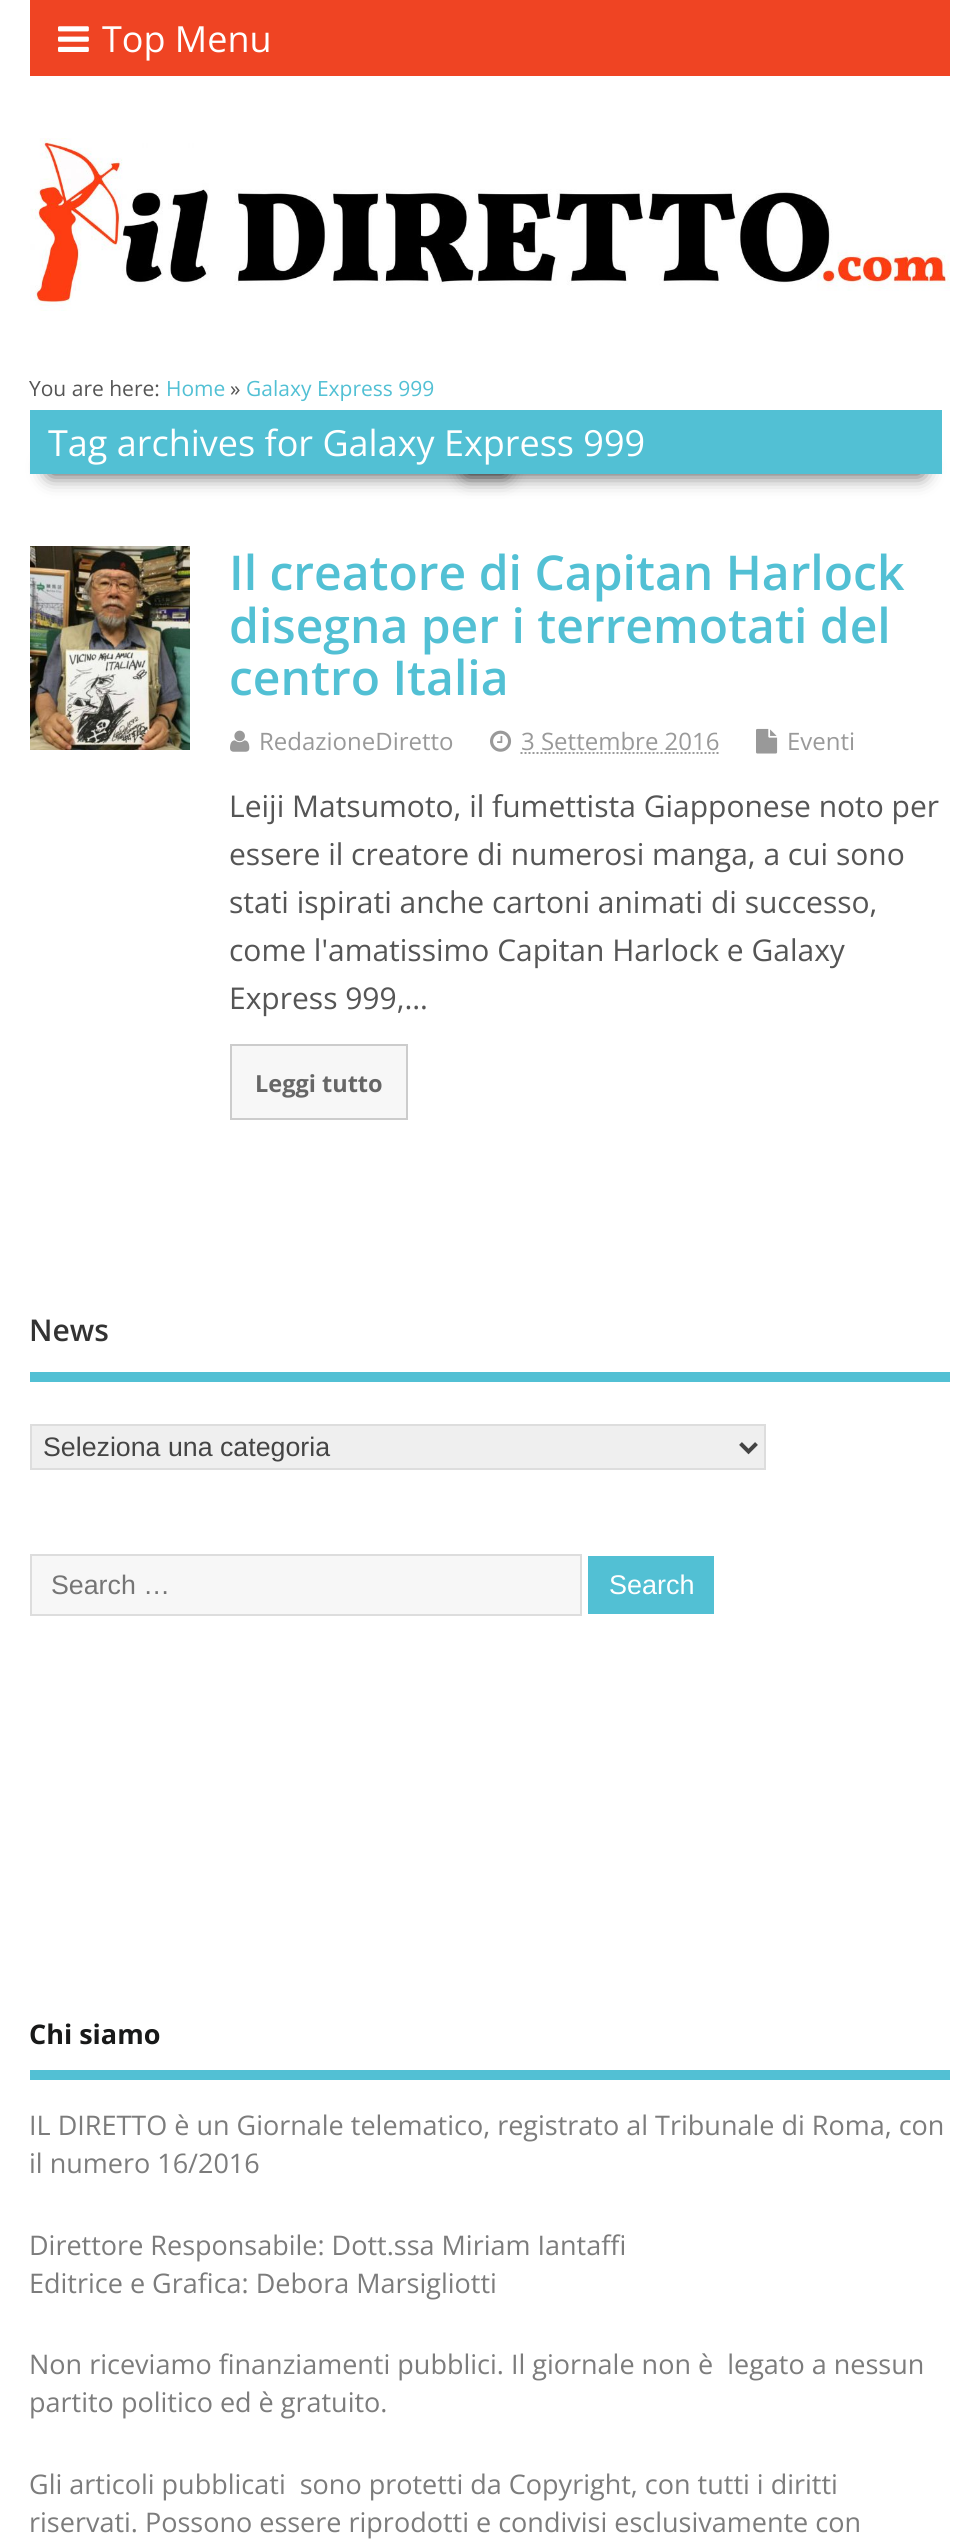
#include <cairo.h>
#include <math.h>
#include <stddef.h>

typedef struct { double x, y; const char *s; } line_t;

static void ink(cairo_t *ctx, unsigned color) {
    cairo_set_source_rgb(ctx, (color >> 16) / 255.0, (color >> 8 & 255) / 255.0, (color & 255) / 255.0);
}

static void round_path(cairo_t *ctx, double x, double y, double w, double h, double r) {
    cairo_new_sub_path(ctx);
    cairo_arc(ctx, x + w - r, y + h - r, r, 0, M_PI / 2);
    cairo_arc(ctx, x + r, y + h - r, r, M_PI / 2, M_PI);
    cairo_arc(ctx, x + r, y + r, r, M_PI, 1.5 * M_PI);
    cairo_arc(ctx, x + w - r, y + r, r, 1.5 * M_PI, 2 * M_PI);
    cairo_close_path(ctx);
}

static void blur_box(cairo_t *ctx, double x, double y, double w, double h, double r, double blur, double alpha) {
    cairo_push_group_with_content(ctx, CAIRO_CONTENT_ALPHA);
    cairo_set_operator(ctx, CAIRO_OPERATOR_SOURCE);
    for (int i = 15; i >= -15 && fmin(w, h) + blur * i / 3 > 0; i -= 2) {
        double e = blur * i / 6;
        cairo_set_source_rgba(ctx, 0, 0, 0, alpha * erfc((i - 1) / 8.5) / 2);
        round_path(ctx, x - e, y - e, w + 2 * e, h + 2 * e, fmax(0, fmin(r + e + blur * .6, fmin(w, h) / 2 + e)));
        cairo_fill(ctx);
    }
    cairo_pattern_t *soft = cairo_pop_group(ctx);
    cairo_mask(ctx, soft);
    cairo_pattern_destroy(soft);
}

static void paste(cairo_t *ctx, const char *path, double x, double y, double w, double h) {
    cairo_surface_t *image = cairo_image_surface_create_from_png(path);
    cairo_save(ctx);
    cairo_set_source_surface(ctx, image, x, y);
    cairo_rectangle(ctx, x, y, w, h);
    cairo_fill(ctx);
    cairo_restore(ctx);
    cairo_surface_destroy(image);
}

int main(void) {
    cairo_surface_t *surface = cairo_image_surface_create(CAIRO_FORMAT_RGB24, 980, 2546);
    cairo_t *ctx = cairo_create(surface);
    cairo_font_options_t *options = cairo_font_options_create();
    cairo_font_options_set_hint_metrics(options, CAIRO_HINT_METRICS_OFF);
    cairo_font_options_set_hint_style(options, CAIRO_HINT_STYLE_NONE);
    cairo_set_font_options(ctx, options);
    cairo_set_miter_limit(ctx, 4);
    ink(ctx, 0xFFFFFF);
    cairo_paint(ctx);
    ink(ctx, 0xEF4423);
    cairo_rectangle(ctx, 30, 0, 920, 76);
    cairo_fill(ctx);
    paste(ctx, "media/1.png", 58, 26, 31, 26);
    cairo_select_font_face(ctx, "Open Sans", CAIRO_FONT_SLANT_NORMAL, CAIRO_FONT_WEIGHT_NORMAL);
    cairo_set_font_size(ctx, 36);
    ink(ctx, 0xFFFFFF);
    cairo_move_to(ctx, 102, 52);
    cairo_show_text(ctx, "Top Menu");
    paste(ctx, "media/2.png", 30, 138, 920, 173);
    cairo_set_font_size(ctx, 21);
    ink(ctx, 0x555555);
    cairo_move_to(ctx, 29, 396);
    cairo_show_text(ctx, "You are here:");
    ink(ctx, 0x52C0D4);
    cairo_move_to(ctx, 166, 396);
    cairo_show_text(ctx, "Home");
    ink(ctx, 0x555555);
    cairo_move_to(ctx, 230, 396);
    cairo_show_text(ctx, "»");
    ink(ctx, 0x52C0D4);
    cairo_move_to(ctx, 246, 396);
    cairo_show_text(ctx, "Galaxy Express 999");
    ink(ctx, 0x000000);
    blur_box(ctx, 50, 462, 456, 12, 0, 10, 0.75);
    blur_box(ctx, 466, 462, 456, 12, 0, 10, 0.75);
    ink(ctx, 0x52C0D4);
    cairo_rectangle(ctx, 30, 410, 912, 64);
    cairo_fill(ctx);
    cairo_set_font_size(ctx, 36);
    ink(ctx, 0xFFFFFF);
    cairo_move_to(ctx, 48, 456);
    cairo_show_text(ctx, "Tag archives for Galaxy Express 999");
    paste(ctx, "media/3.png", 30, 546, 160, 204);
    cairo_select_font_face(ctx, "Open Sans SemiBold", CAIRO_FONT_SLANT_NORMAL, CAIRO_FONT_WEIGHT_NORMAL);
    cairo_set_font_size(ctx, 48);
    ink(ctx, 0x52C0D4);
    {
        static const line_t items[] = {
            {229, 590, "Il creatore di Capitan Harlock"},
            {229, 643, "disegna per i terremotati del"},
            {229, 695, "centro Italia"},
        };
        for (size_t i = 0; i < sizeof items / sizeof *items; i++) {
            cairo_move_to(ctx, items[i].x, items[i].y);
            cairo_show_text(ctx, items[i].s);
        }
    }
    paste(ctx, "media/4.png", 230, 730, 20, 22);
    cairo_select_font_face(ctx, "Open Sans", CAIRO_FONT_SLANT_NORMAL, CAIRO_FONT_WEIGHT_NORMAL);
    cairo_set_font_size(ctx, 24);
    ink(ctx, 0x999999);
    cairo_move_to(ctx, 259, 750);
    cairo_show_text(ctx, "RedazioneDiretto");
    paste(ctx, "media/5.png", 490, 730, 22, 22);
    cairo_move_to(ctx, 521, 750);
    cairo_show_text(ctx, "3 Settembre 2016");
    cairo_new_path(ctx);
    cairo_move_to(ctx, 520.5, 753);
    cairo_line_to(ctx, 719, 753);
    cairo_set_dash(ctx, (double[]){2, 2}, 2, 0);
    cairo_stroke(ctx);
    paste(ctx, "media/6.png", 756, 728, 22, 26);
    cairo_move_to(ctx, 787, 750);
    cairo_show_text(ctx, "Eventi");
    cairo_set_font_size(ctx, 30);
    ink(ctx, 0x555555);
    {
        static const line_t items[] = {
            {229, 817, "Leiji Matsumoto, il fumettista Giapponese noto per"},
            {229, 865, "essere il creatore di numerosi manga, a cui sono"},
            {229, 913, "stati ispirati anche cartoni animati di successo,"},
            {229, 961, "come l'amatissimo Capitan Harlock e Galaxy"},
            {229, 1009, "Express 999,…"},
        };
        for (size_t i = 0; i < sizeof items / sizeof *items; i++) {
            cairo_move_to(ctx, items[i].x, items[i].y);
            cairo_show_text(ctx, items[i].s);
        }
    }
    ink(ctx, 0xF7F7F7);
    cairo_rectangle(ctx, 231, 1045, 176, 74);
    cairo_fill_preserve(ctx);
    ink(ctx, 0xCCCCCC);
    cairo_set_dash(ctx, NULL, 0, 0);
    cairo_stroke(ctx);
    cairo_select_font_face(ctx, "Open Sans", CAIRO_FONT_SLANT_NORMAL, CAIRO_FONT_WEIGHT_BOLD);
    cairo_set_font_size(ctx, 23.5);
    ink(ctx, 0x666666);
    cairo_move_to(ctx, 255, 1092);
    cairo_show_text(ctx, "Leggi tutto");
    ink(ctx, 0x52C0D4);
    cairo_rectangle(ctx, 30, 1372, 920, 10);
    cairo_fill(ctx);
    cairo_select_font_face(ctx, "Open Sans SemiBold", CAIRO_FONT_SLANT_NORMAL, CAIRO_FONT_WEIGHT_NORMAL);
    cairo_set_font_size(ctx, 30);
    ink(ctx, 0x333333);
    cairo_move_to(ctx, 29, 1341);
    cairo_show_text(ctx, "News");
    ink(ctx, 0xEFEFEF);
    cairo_rectangle(ctx, 31, 1425, 734, 44);
    cairo_fill_preserve(ctx);
    ink(ctx, 0xDDDDDD);
    cairo_stroke(ctx);
    cairo_new_path(ctx);
    cairo_move_to(ctx, 740.5, 1443.5);
    cairo_line_to(ctx, 748.5, 1451.5);
    cairo_line_to(ctx, 756.5, 1443.5);
    ink(ctx, 0x444444);
    cairo_set_line_width(ctx, 4);
    cairo_stroke(ctx);
    cairo_select_font_face(ctx, "Liberation Sans", CAIRO_FONT_SLANT_NORMAL, CAIRO_FONT_WEIGHT_NORMAL);
    cairo_set_font_size(ctx, 26.75);
    cairo_move_to(ctx, 43, 1456);
    cairo_show_text(ctx, "Seleziona una categoria");
    ink(ctx, 0xF7F7F7);
    cairo_rectangle(ctx, 31, 1555, 550, 60);
    cairo_fill_preserve(ctx);
    ink(ctx, 0xDDDDDD);
    cairo_set_line_width(ctx, 2);
    cairo_stroke(ctx);
    ink(ctx, 0x757575);
    cairo_move_to(ctx, 51, 1594);
    cairo_show_text(ctx, "Search …");
    ink(ctx, 0x52C0D4);
    cairo_rectangle(ctx, 588, 1556, 126, 58);
    cairo_fill(ctx);
    cairo_set_font_size(ctx, 27);
    ink(ctx, 0xFFFFFF);
    cairo_move_to(ctx, 609, 1594);
    cairo_show_text(ctx, "Search");
    ink(ctx, 0x52C0D4);
    cairo_rectangle(ctx, 30, 2070, 920, 10);
    cairo_fill(ctx);
    cairo_select_font_face(ctx, "Open Sans", CAIRO_FONT_SLANT_NORMAL, CAIRO_FONT_WEIGHT_BOLD);
    ink(ctx, 0x181919);
    cairo_move_to(ctx, 29, 2044);
    cairo_show_text(ctx, "Chi siamo");
    cairo_select_font_face(ctx, "Open Sans", CAIRO_FONT_SLANT_NORMAL, CAIRO_FONT_WEIGHT_NORMAL);
    ink(ctx, 0x7C7C7C);
    {
        static const line_t items[] = {
            {29, 2135, "IL DIRETTO è un Giornale telematico, registrato al Tribunale di Roma, con"},
            {29, 2173, "il numero 16/2016"},
            {29, 2255, "Direttore Responsabile: Dott.ssa Miriam Iantaffi"},
            {29, 2293, "Editrice e Grafica: Debora Marsigliotti"},
            {29, 2374, "Non riceviamo finanziamenti pubblici. Il giornale non è  legato a nessun"},
            {29, 2412, "partito politico ed è gratuito."},
            {29, 2494, "Gli articoli pubblicati  sono protetti da Copyright, con tutti i diritti"},
            {29, 2532, "riservati. Possono essere riprodotti e condivisi esclusivamente con"},
        };
        for (size_t i = 0; i < sizeof items / sizeof *items; i++) {
            cairo_move_to(ctx, items[i].x, items[i].y);
            cairo_show_text(ctx, items[i].s);
        }
    }
    cairo_surface_write_to_png(surface, "image.png");
    cairo_font_options_destroy(options);
    cairo_destroy(ctx);
    cairo_surface_destroy(surface);
    return 0;
}
